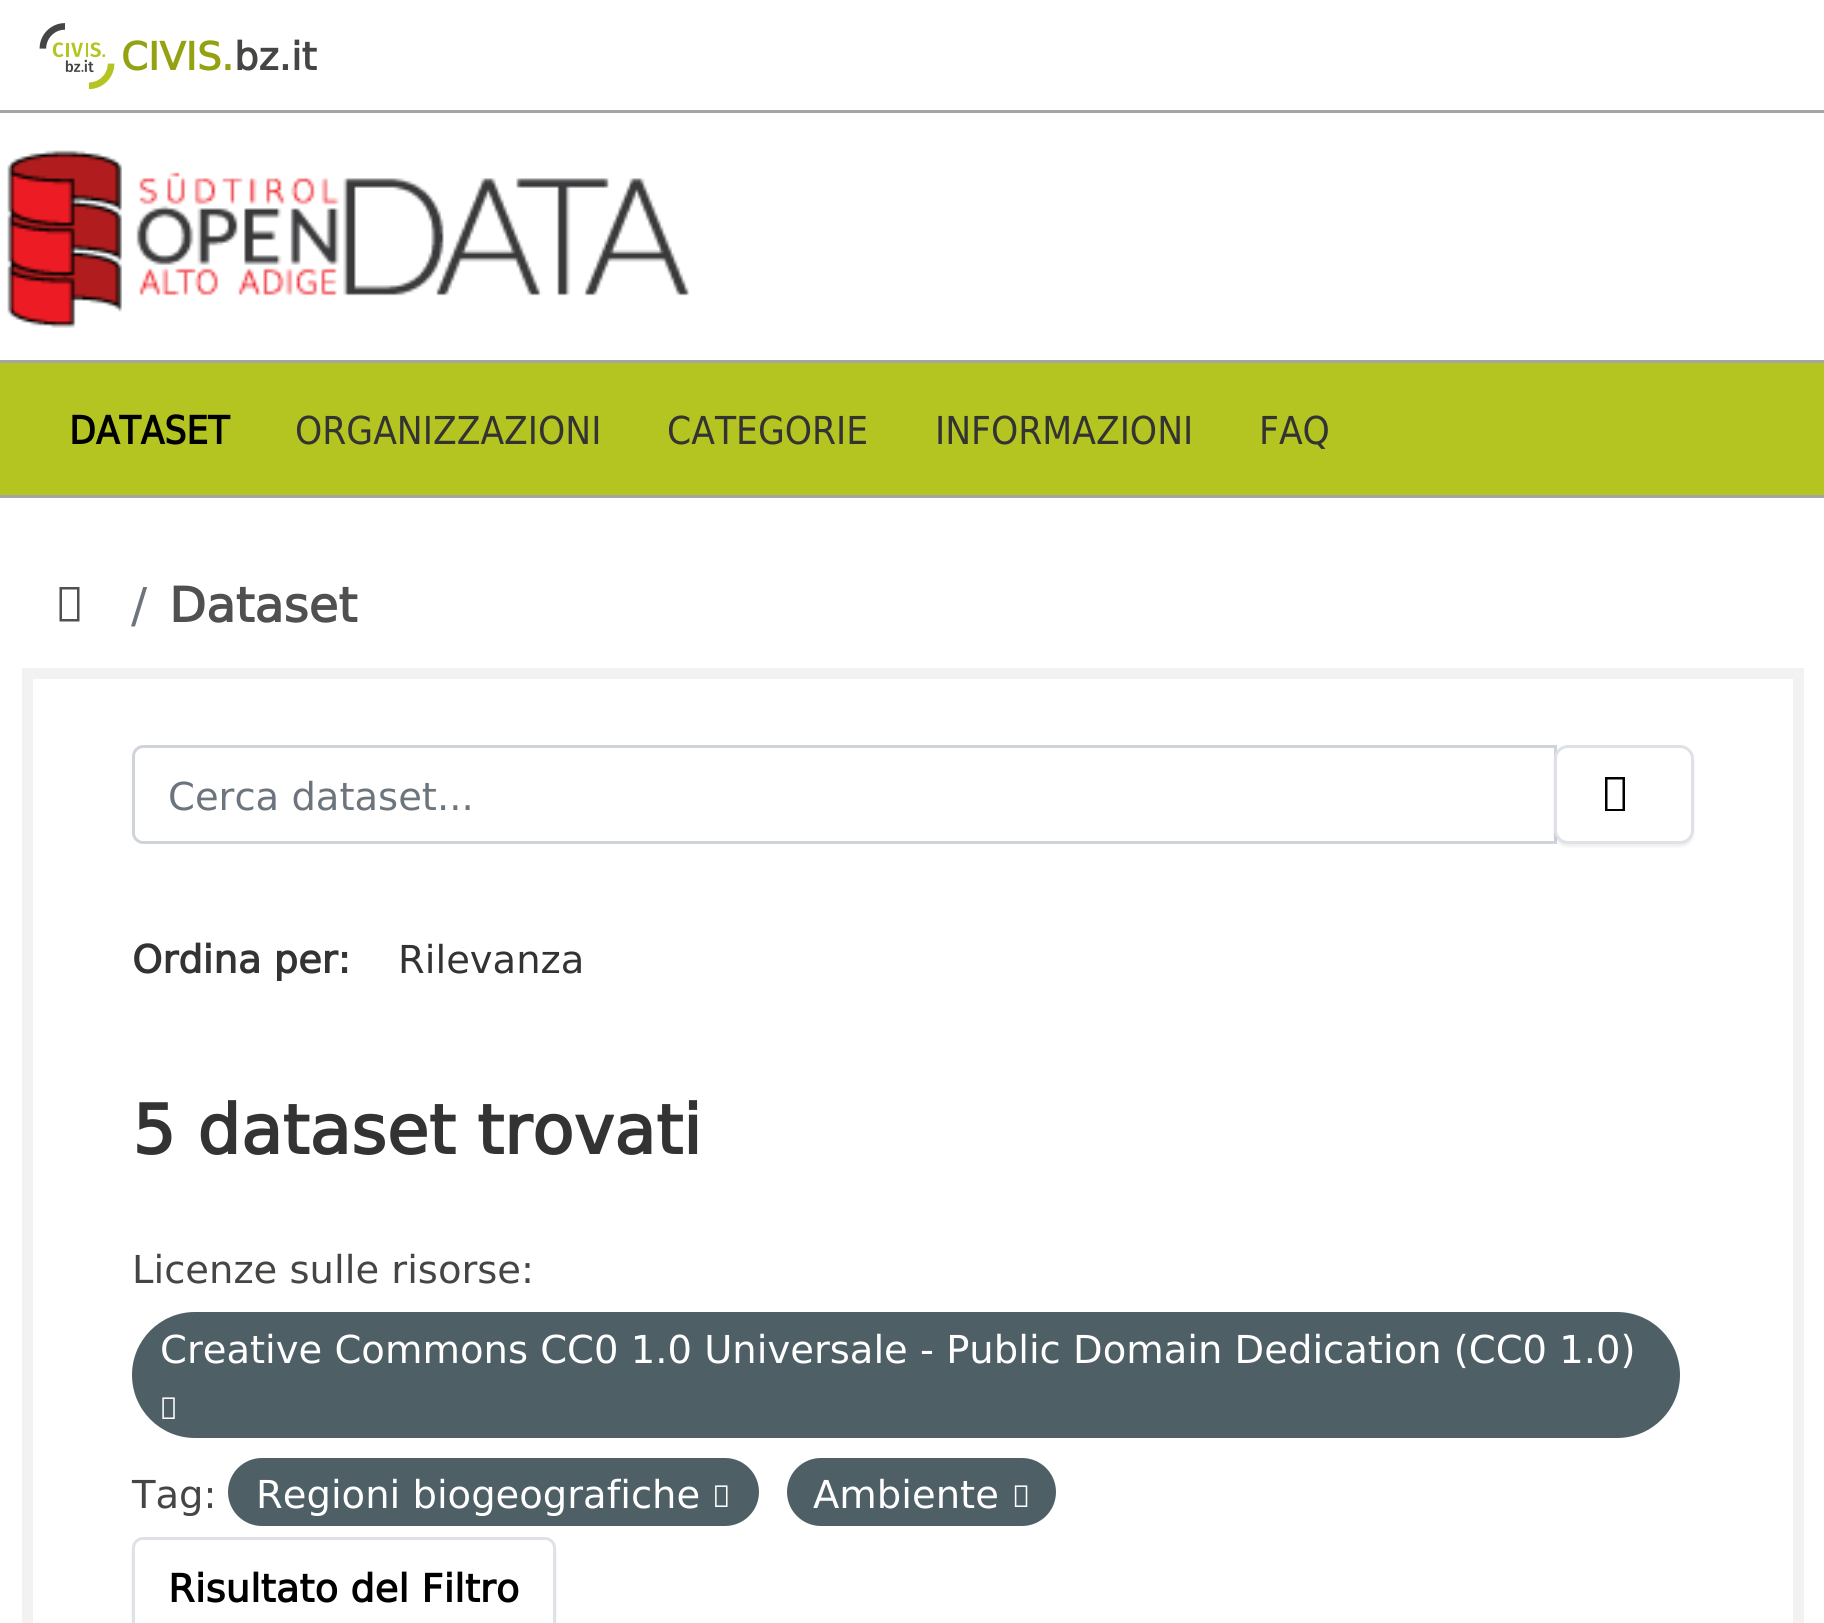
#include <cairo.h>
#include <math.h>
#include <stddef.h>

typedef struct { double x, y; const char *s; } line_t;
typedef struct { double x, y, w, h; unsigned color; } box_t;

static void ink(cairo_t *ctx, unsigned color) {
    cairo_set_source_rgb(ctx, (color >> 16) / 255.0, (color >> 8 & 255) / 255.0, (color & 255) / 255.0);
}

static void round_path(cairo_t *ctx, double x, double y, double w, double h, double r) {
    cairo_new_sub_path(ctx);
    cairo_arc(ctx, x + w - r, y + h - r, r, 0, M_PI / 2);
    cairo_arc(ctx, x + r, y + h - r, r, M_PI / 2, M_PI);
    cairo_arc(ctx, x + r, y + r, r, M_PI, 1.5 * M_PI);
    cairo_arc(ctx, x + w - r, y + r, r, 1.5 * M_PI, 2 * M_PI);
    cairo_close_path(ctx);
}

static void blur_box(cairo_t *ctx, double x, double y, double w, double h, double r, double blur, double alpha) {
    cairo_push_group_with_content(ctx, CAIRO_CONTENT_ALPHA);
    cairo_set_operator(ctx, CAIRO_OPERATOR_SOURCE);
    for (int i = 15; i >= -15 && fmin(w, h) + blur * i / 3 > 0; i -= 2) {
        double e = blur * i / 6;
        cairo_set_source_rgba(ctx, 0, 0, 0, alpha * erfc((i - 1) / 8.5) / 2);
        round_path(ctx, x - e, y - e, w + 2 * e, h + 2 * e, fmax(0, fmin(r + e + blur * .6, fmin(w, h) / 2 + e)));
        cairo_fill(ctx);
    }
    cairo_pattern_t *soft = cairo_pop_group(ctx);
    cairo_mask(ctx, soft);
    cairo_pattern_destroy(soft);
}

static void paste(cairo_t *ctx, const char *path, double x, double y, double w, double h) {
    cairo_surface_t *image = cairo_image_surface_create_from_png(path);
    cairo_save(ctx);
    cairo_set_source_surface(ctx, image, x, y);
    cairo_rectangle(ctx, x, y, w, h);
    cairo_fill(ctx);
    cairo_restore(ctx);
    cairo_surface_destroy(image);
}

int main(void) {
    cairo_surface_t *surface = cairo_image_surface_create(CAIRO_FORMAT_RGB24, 1824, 1623);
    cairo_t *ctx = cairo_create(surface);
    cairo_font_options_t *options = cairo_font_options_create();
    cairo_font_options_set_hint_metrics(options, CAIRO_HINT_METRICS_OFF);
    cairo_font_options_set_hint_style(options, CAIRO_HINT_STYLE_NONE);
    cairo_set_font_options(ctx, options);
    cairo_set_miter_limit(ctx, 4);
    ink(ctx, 0xFFFFFF);
    cairo_paint(ctx);
    ink(ctx, 0xA4A5A5);
    cairo_rectangle(ctx, 0, 110, 1824, 3);
    cairo_fill(ctx);
    paste(ctx, "media/1.png", 39, 23, 76, 67);
    cairo_select_font_face(ctx, "DejaVu Sans", CAIRO_FONT_SLANT_NORMAL, CAIRO_FONT_WEIGHT_BOLD);
    cairo_set_font_size(ctx, 38.5);
    ink(ctx, 0x94A212);
    cairo_move_to(ctx, 121, 70);
    cairo_show_text(ctx, "CIVIS.");
    ink(ctx, 0x454544);
    cairo_move_to(ctx, 234, 70);
    cairo_show_text(ctx, "bz.it");
    paste(ctx, "media/2.png", 7, 150, 683, 178);
    {
        static const box_t items[] = {
            {0, 363, 1824, 132, 0xB4C420},
            {0, 360, 1824, 3, 0xA4A5A5},
            {0, 495, 1824, 3, 0xA4A5A5},
        };
        for (size_t i = 0; i < sizeof items / sizeof *items; i++) {
            ink(ctx, items[i].color);
            cairo_rectangle(ctx, items[i].x, items[i].y, items[i].w, items[i].h);
            cairo_fill(ctx);
        }
    }
    cairo_select_font_face(ctx, "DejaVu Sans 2", CAIRO_FONT_SLANT_NORMAL, CAIRO_FONT_WEIGHT_BOLD);
    ink(ctx, 0x000000);
    cairo_move_to(ctx, 69, 444);
    cairo_show_text(ctx, "DATASET");
    cairo_select_font_face(ctx, "DejaVu Sans", CAIRO_FONT_SLANT_NORMAL, CAIRO_FONT_WEIGHT_NORMAL);
    ink(ctx, 0x333333);
    {
        static const line_t items[] = {
            {295, 444, "ORGANIZZAZIONI"},
            {667, 444, "CATEGORIE"},
            {935, 444, "INFORMAZIONI"},
            {1259, 444, "FAQ"},
        };
        for (size_t i = 0; i < sizeof items / sizeof *items; i++) {
            cairo_move_to(ctx, items[i].x, items[i].y);
            cairo_show_text(ctx, items[i].s);
        }
    }
    ink(ctx, 0x505050);
    cairo_new_path(ctx);
    cairo_move_to(ctx, 59.5, 621.5);
    cairo_line_to(ctx, 59.5, 587);
    cairo_line_to(ctx, 79.5, 587);
    cairo_line_to(ctx, 79.5, 621.5);
    cairo_close_path(ctx);
    cairo_move_to(ctx, 62, 619);
    cairo_line_to(ctx, 77, 619);
    cairo_line_to(ctx, 77, 589.5);
    cairo_line_to(ctx, 62, 589.5);
    cairo_close_path(ctx);
    cairo_fill(ctx);
    cairo_select_font_face(ctx, "DejaVu Sans 2", CAIRO_FONT_SLANT_NORMAL, CAIRO_FONT_WEIGHT_NORMAL);
    cairo_set_font_size(ctx, 48);
    ink(ctx, 0x6C757D);
    cairo_move_to(ctx, 131, 622);
    cairo_show_text(ctx, "/");
    cairo_select_font_face(ctx, "DejaVu Sans", CAIRO_FONT_SLANT_NORMAL, CAIRO_FONT_WEIGHT_BOLD);
    ink(ctx, 0x505050);
    cairo_move_to(ctx, 169, 622);
    cairo_show_text(ctx, "Dataset");
    cairo_rectangle(ctx, 27.5, 673.5, 1771, 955);
    ink(ctx, 0xF2F2F2);
    cairo_set_line_width(ctx, 11);
    cairo_stroke(ctx);
    cairo_new_path(ctx);
    cairo_move_to(ctx, 143, 746.5);
    cairo_line_to(ctx, 1555.5, 746.5);
    cairo_line_to(ctx, 1555.5, 842.5);
    cairo_line_to(ctx, 143, 842.5);
    cairo_curve_to(ctx, 138, 842.5, 133.5, 838, 133.5, 833);
    cairo_line_to(ctx, 133.5, 756);
    cairo_curve_to(ctx, 133.5, 751, 138, 746.5, 143, 746.5);
    cairo_close_path(ctx);
    ink(ctx, 0xCED4DA);
    cairo_set_line_width(ctx, 3);
    cairo_stroke(ctx);
    cairo_select_font_face(ctx, "DejaVu Sans 2", CAIRO_FONT_SLANT_NORMAL, CAIRO_FONT_WEIGHT_NORMAL);
    cairo_set_font_size(ctx, 38.5);
    ink(ctx, 0x6C757D);
    cairo_move_to(ctx, 168, 810);
    cairo_show_text(ctx, "Cerca dataset...");
    ink(ctx, 0x000000);
    blur_box(ctx, 1554, 748, 140, 99, 14, 1.5, 0.07);
    ink(ctx, 0xFFFFFF);
    round_path(ctx, 1555.5, 746.5, 137, 96, 12.5);
    cairo_fill_preserve(ctx);
    ink(ctx, 0xDEE2E6);
    cairo_stroke(ctx);
    ink(ctx, 0x000000);
    cairo_new_path(ctx);
    cairo_move_to(ctx, 1605, 811);
    cairo_line_to(ctx, 1605, 777);
    cairo_line_to(ctx, 1625, 777);
    cairo_line_to(ctx, 1625, 811);
    cairo_close_path(ctx);
    cairo_move_to(ctx, 1607.5, 809);
    cairo_line_to(ctx, 1622.5, 809);
    cairo_line_to(ctx, 1622.5, 779.5);
    cairo_line_to(ctx, 1607.5, 779.5);
    cairo_close_path(ctx);
    cairo_fill(ctx);
    cairo_select_font_face(ctx, "DejaVu Sans", CAIRO_FONT_SLANT_NORMAL, CAIRO_FONT_WEIGHT_BOLD);
    ink(ctx, 0x333333);
    cairo_move_to(ctx, 132, 973);
    cairo_show_text(ctx, "Ordina per:");
    cairo_select_font_face(ctx, "DejaVu Sans 2", CAIRO_FONT_SLANT_NORMAL, CAIRO_FONT_WEIGHT_NORMAL);
    cairo_move_to(ctx, 398, 973);
    cairo_show_text(ctx, "Rilevanza");
    cairo_select_font_face(ctx, "DejaVu Sans", CAIRO_FONT_SLANT_NORMAL, CAIRO_FONT_WEIGHT_BOLD);
    cairo_set_font_size(ctx, 68.25);
    cairo_move_to(ctx, 132, 1154);
    cairo_show_text(ctx, "5 dataset trovati");
    cairo_select_font_face(ctx, "DejaVu Sans 2", CAIRO_FONT_SLANT_NORMAL, CAIRO_FONT_WEIGHT_NORMAL);
    cairo_set_font_size(ctx, 38.5);
    ink(ctx, 0x454544);
    cairo_move_to(ctx, 132, 1283);
    cairo_show_text(ctx, "Licenze sulle risorse:");
    ink(ctx, 0x4E5F65);
    round_path(ctx, 132, 1312, 1548, 126, 63);
    cairo_fill(ctx);
    ink(ctx, 0xFFFFFF);
    cairo_move_to(ctx, 160, 1363);
    cairo_show_text(ctx, "Creative Commons CC0 1.0 Universale - Public Domain Dedication (CC0 1.0)");
    paste(ctx, "media/3.png", 162, 1397, 13, 22);
    ink(ctx, 0x454544);
    cairo_move_to(ctx, 132, 1508);
    cairo_show_text(ctx, "Tag:");
    ink(ctx, 0x4E5F65);
    round_path(ctx, 228, 1458, 531, 68, 34);
    cairo_fill(ctx);
    ink(ctx, 0xFFFFFF);
    cairo_move_to(ctx, 256, 1508);
    cairo_show_text(ctx, "Regioni biogeografiche");
    paste(ctx, "media/4.png", 715, 1485, 13, 22);
    ink(ctx, 0x4E5F65);
    round_path(ctx, 787, 1458, 269, 68, 34);
    cairo_fill(ctx);
    ink(ctx, 0xFFFFFF);
    cairo_move_to(ctx, 813, 1508);
    cairo_show_text(ctx, "Ambiente");
    paste(ctx, "media/5.png", 1014, 1485, 14, 22);
    ink(ctx, 0x000000);
    blur_box(ctx, 132, 1540, 424, 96, 11, 1.5, 0.07);
    ink(ctx, 0xFFFFFF);
    round_path(ctx, 133.5, 1538.5, 421, 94, 9.5);
    cairo_fill_preserve(ctx);
    ink(ctx, 0xDEE2E6);
    cairo_stroke(ctx);
    cairo_select_font_face(ctx, "DejaVu Sans", CAIRO_FONT_SLANT_NORMAL, CAIRO_FONT_WEIGHT_BOLD);
    ink(ctx, 0x000000);
    cairo_move_to(ctx, 168, 1602);
    cairo_show_text(ctx, "Risultato del Filtro");
    cairo_surface_write_to_png(surface, "image.png");
    cairo_font_options_destroy(options);
    cairo_destroy(ctx);
    cairo_surface_destroy(surface);
    return 0;
}
